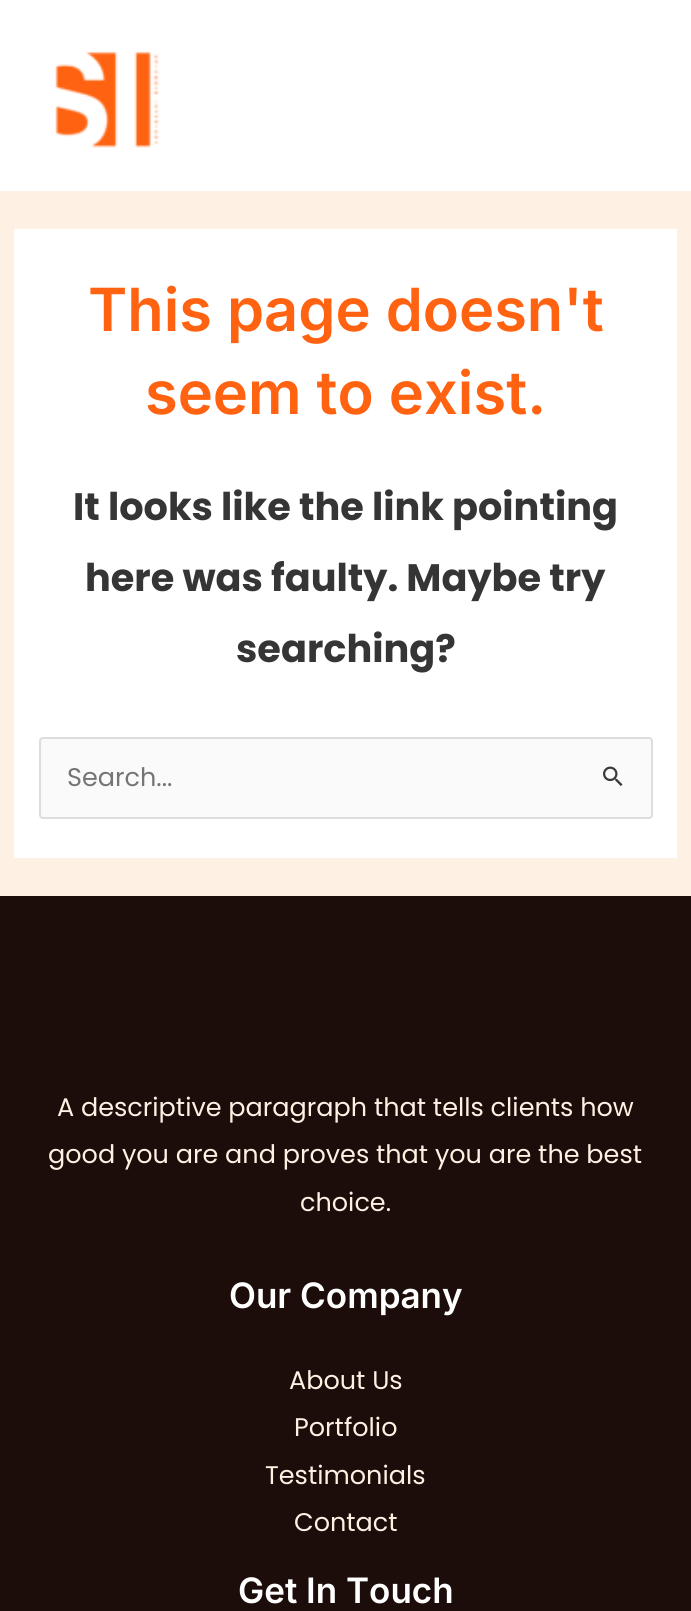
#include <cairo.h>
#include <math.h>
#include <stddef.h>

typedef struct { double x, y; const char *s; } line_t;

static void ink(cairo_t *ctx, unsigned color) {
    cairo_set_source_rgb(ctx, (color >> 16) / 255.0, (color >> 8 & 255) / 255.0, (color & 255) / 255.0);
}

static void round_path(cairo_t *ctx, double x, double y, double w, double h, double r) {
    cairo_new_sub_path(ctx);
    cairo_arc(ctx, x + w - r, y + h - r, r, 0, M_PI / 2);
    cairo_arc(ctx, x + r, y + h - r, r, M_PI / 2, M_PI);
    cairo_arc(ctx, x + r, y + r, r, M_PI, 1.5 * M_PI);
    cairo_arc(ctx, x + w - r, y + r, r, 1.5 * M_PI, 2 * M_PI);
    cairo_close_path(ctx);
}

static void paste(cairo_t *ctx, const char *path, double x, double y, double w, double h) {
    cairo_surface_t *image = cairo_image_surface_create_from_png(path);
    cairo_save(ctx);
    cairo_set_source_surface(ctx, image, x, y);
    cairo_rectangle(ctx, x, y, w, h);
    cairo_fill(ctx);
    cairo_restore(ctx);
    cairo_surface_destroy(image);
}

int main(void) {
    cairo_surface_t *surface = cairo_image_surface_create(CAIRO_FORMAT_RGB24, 691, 1611);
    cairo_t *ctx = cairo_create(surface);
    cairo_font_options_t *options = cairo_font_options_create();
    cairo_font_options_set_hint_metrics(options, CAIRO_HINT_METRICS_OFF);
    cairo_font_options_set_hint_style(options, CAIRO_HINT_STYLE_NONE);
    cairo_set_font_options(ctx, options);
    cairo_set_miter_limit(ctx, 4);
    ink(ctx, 0xFEF1E4);
    cairo_paint(ctx);
    ink(ctx, 0xFFFFFF);
    cairo_rectangle(ctx, 0, 0, 691, 191);
    cairo_fill(ctx);
    paste(ctx, "media/1.png", 55, 51, 105, 97);
    cairo_rectangle(ctx, 14, 229, 663, 629);
    cairo_fill(ctx);
    cairo_select_font_face(ctx, "Inter SemiBold", CAIRO_FONT_SLANT_NORMAL, CAIRO_FONT_WEIGHT_NORMAL);
    cairo_set_font_size(ctx, 59.5);
    ink(ctx, 0xFF6210);
    cairo_move_to(ctx, 88, 331);
    cairo_show_text(ctx, "This page doesn't");
    cairo_move_to(ctx, 145, 414);
    cairo_show_text(ctx, "seem to exist.");
    cairo_select_font_face(ctx, "Poppins", CAIRO_FONT_SLANT_NORMAL, CAIRO_FONT_WEIGHT_BOLD);
    cairo_set_font_size(ctx, 38.25);
    ink(ctx, 0x353535);
    {
        static const line_t items[] = {
            {73, 520, "It looks like the link pointing"},
            {85, 591, "here was faulty. Maybe try"},
            {236, 662, "searching?"},
        };
        for (size_t i = 0; i < sizeof items / sizeof *items; i++) {
            cairo_move_to(ctx, items[i].x, items[i].y);
            cairo_show_text(ctx, items[i].s);
        }
    }
    ink(ctx, 0xFAFAFA);
    round_path(ctx, 40, 738, 612, 80, 3);
    cairo_fill_preserve(ctx);
    ink(ctx, 0xDDDDDD);
    cairo_stroke(ctx);
    cairo_select_font_face(ctx, "Poppins", CAIRO_FONT_SLANT_NORMAL, CAIRO_FONT_WEIGHT_NORMAL);
    cairo_set_font_size(ctx, 25.5);
    ink(ctx, 0x757575);
    cairo_move_to(ctx, 67, 786);
    cairo_show_text(ctx, "Search...");
    paste(ctx, "media/2.png", 603, 766, 20, 20);
    ink(ctx, 0x1C0D0A);
    cairo_rectangle(ctx, 0, 896, 691, 715);
    cairo_fill(ctx);
    ink(ctx, 0xFEF1E4);
    {
        static const line_t items[] = {
            {57, 1116, "A descriptive paragraph that tells clients how"},
            {48, 1163, "good you are and proves that you are the best"},
            {300, 1211, "choice."},
        };
        for (size_t i = 0; i < sizeof items / sizeof *items; i++) {
            cairo_move_to(ctx, items[i].x, items[i].y);
            cairo_show_text(ctx, items[i].s);
        }
    }
    cairo_select_font_face(ctx, "Inter SemiBold", CAIRO_FONT_SLANT_NORMAL, CAIRO_FONT_WEIGHT_NORMAL);
    cairo_set_font_size(ctx, 35);
    ink(ctx, 0xFFFFFF);
    cairo_move_to(ctx, 229, 1308);
    cairo_show_text(ctx, "Our Company");
    cairo_select_font_face(ctx, "Poppins", CAIRO_FONT_SLANT_NORMAL, CAIRO_FONT_WEIGHT_NORMAL);
    cairo_set_font_size(ctx, 25.5);
    ink(ctx, 0xFEF1E4);
    {
        static const line_t items[] = {
            {289, 1389, "About Us"},
            {294, 1436, "Portfolio"},
            {265, 1484, "Testimonials"},
            {294, 1531, "Contact"},
        };
        for (size_t i = 0; i < sizeof items / sizeof *items; i++) {
            cairo_move_to(ctx, items[i].x, items[i].y);
            cairo_show_text(ctx, items[i].s);
        }
    }
    cairo_select_font_face(ctx, "Inter SemiBold", CAIRO_FONT_SLANT_NORMAL, CAIRO_FONT_WEIGHT_NORMAL);
    cairo_set_font_size(ctx, 35);
    ink(ctx, 0xFFFFFF);
    cairo_move_to(ctx, 238, 1603);
    cairo_show_text(ctx, "Get In Touch");
    cairo_surface_write_to_png(surface, "image.png");
    cairo_font_options_destroy(options);
    cairo_destroy(ctx);
    cairo_surface_destroy(surface);
    return 0;
}
